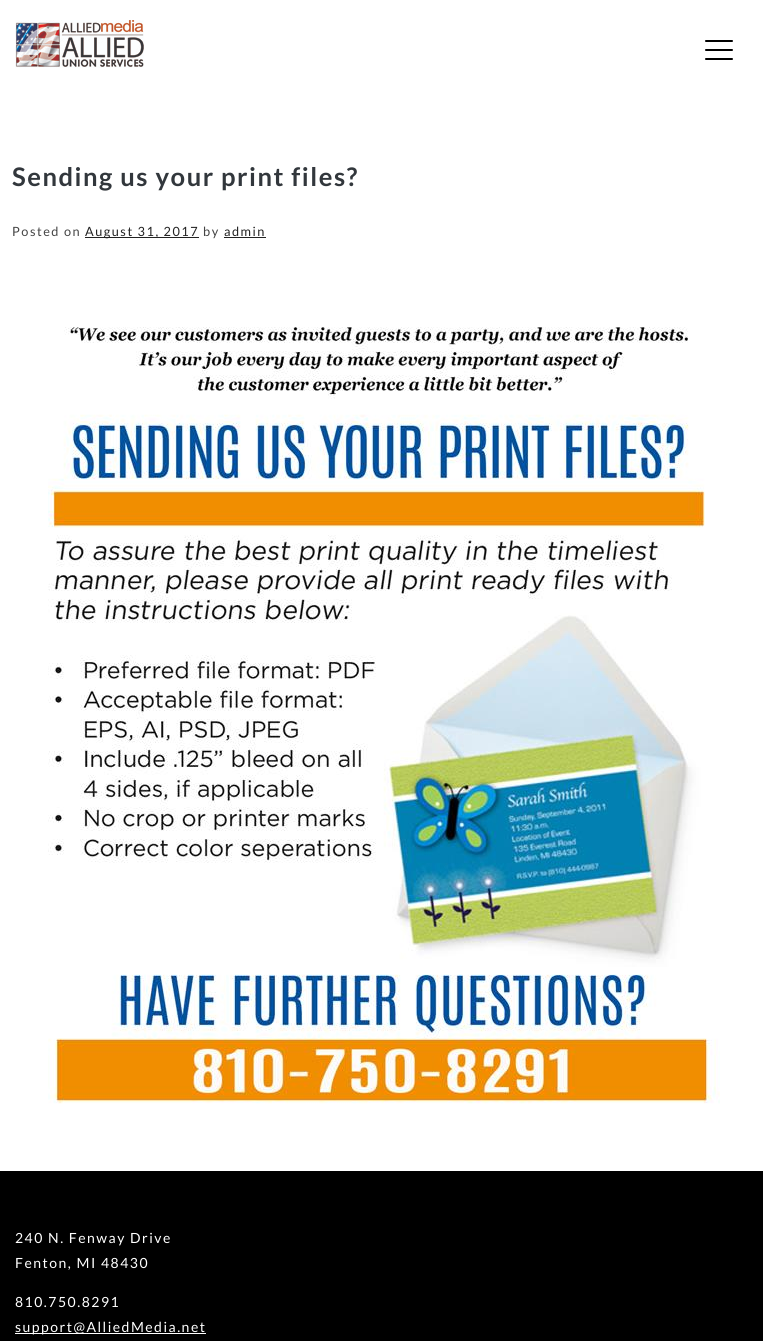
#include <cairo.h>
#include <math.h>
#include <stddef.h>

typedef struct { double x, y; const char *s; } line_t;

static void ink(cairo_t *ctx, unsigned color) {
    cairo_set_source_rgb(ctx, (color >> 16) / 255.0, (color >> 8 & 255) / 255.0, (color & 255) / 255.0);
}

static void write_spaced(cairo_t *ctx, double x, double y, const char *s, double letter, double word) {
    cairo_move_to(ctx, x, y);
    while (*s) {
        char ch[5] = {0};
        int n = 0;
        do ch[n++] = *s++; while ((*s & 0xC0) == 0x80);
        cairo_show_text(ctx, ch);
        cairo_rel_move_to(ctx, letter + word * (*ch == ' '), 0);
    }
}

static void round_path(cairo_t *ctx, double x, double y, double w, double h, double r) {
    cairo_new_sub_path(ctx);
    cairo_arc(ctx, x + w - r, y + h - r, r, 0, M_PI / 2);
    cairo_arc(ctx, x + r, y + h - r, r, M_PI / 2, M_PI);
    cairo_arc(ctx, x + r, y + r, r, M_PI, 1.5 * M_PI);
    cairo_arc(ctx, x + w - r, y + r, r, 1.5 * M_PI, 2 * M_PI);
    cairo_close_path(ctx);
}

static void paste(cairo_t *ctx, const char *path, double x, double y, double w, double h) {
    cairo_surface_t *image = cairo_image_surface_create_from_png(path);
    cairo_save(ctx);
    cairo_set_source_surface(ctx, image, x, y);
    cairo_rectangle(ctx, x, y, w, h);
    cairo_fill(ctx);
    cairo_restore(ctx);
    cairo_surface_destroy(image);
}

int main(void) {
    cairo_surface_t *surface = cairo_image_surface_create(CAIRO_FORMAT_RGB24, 763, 1341);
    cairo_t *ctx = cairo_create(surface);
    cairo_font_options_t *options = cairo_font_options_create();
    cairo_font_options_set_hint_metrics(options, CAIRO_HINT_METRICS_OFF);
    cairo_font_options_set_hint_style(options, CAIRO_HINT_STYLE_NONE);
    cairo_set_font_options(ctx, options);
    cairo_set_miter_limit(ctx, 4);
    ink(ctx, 0xFFFFFF);
    cairo_paint(ctx);
    paste(ctx, "media/1.png", 15, 20, 129, 48);
    ink(ctx, 0x000000);
    round_path(ctx, 705, 49, 28, 2, 1);
    cairo_fill(ctx);
    round_path(ctx, 705, 40, 28, 2, 1);
    cairo_fill(ctx);
    round_path(ctx, 705, 58, 28, 2, 1);
    cairo_fill(ctx);
    cairo_select_font_face(ctx, "Lato", CAIRO_FONT_SLANT_NORMAL, CAIRO_FONT_WEIGHT_BOLD);
    cairo_set_font_size(ctx, 25.6);
    ink(ctx, 0x32373C);
    write_spaced(ctx, 12, 186, "Sending us your print files?", 1.5, 0);
    cairo_select_font_face(ctx, "Lato", CAIRO_FONT_SLANT_NORMAL, CAIRO_FONT_WEIGHT_NORMAL);
    cairo_set_font_size(ctx, 12.75);
    ink(ctx, 0x444444);
    write_spaced(ctx, 12, 236, "Posted on", 1.5, 0);
    ink(ctx, 0x222222);
    cairo_rectangle(ctx, 85, 237, 114, 1);
    cairo_fill(ctx);
    write_spaced(ctx, 85, 236, "August 31, 2017", 1.5, 0);
    ink(ctx, 0x444444);
    write_spaced(ctx, 203, 236, "by", 1.5, 0);
    ink(ctx, 0x222222);
    write_spaced(ctx, 224, 236, "admin", 1.5, 0);
    cairo_rectangle(ctx, 224, 237, 42, 1);
    cairo_fill(ctx);
    paste(ctx, "media/2.png", 48, 327, 672, 777);
    ink(ctx, 0x000000);
    cairo_rectangle(ctx, 0, 1171, 763, 170);
    cairo_fill(ctx);
    cairo_set_font_size(ctx, 14);
    ink(ctx, 0xFFFFFF);
    {
        static const line_t items[] = {
            {15, 1243, "240 N. Fenway Drive"},
            {15, 1268, "Fenton, MI 48430"},
            {15, 1307, "810.750.8291"},
        };
        for (size_t i = 0; i < sizeof items / sizeof *items; i++) {
            write_spaced(ctx, items[i].x, items[i].y, items[i].s, 1.5, 0);
        }
    }
    cairo_rectangle(ctx, 15, 1333, 191, 1);
    cairo_fill(ctx);
    write_spaced(ctx, 15, 1332, "support@AlliedMedia.net", 1.5, 0);
    cairo_surface_write_to_png(surface, "image.png");
    cairo_font_options_destroy(options);
    cairo_destroy(ctx);
    cairo_surface_destroy(surface);
    return 0;
}
